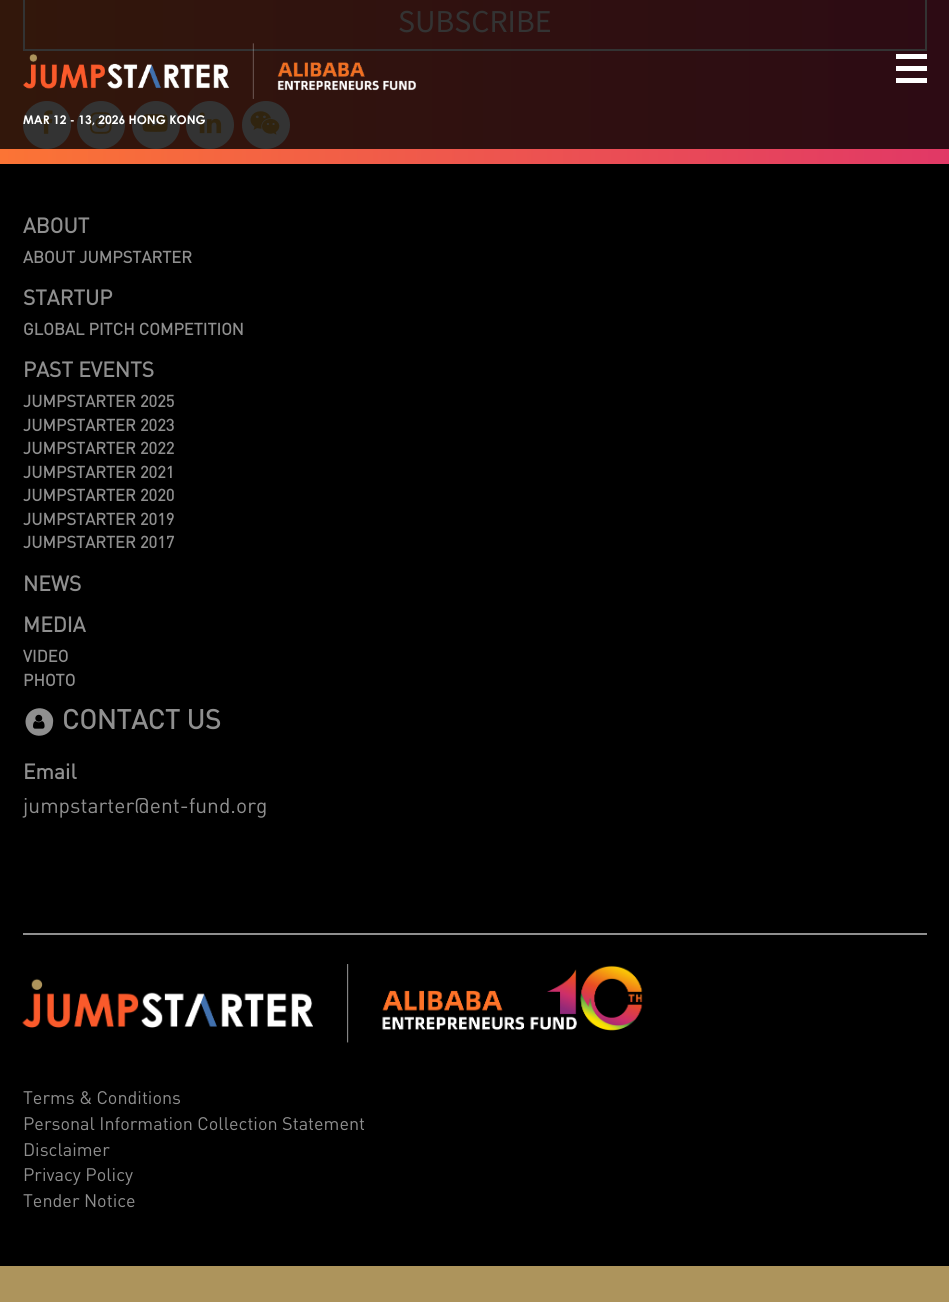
#include <cairo.h>
#include <math.h>
#include <stddef.h>

typedef struct { double x, y; const char *s; } line_t;
typedef struct { double x, y, w, h; unsigned color; } box_t;

static void ink(cairo_t *ctx, unsigned color) {
    cairo_set_source_rgb(ctx, (color >> 16) / 255.0, (color >> 8 & 255) / 255.0, (color & 255) / 255.0);
}

static void paste(cairo_t *ctx, const char *path, double x, double y, double w, double h) {
    cairo_surface_t *image = cairo_image_surface_create_from_png(path);
    cairo_save(ctx);
    cairo_set_source_surface(ctx, image, x, y);
    cairo_rectangle(ctx, x, y, w, h);
    cairo_fill(ctx);
    cairo_restore(ctx);
    cairo_surface_destroy(image);
}

int main(void) {
    cairo_surface_t *surface = cairo_image_surface_create(CAIRO_FORMAT_RGB24, 949, 1302);
    cairo_t *ctx = cairo_create(surface);
    cairo_font_options_t *options = cairo_font_options_create();
    cairo_font_options_set_hint_metrics(options, CAIRO_HINT_METRICS_OFF);
    cairo_font_options_set_hint_style(options, CAIRO_HINT_STYLE_NONE);
    cairo_set_font_options(ctx, options);
    cairo_set_miter_limit(ctx, 4);
    cairo_pattern_t *gradient;
    ink(ctx, 0xFFFFFF);
    cairo_paint(ctx);
    gradient = cairo_pattern_create_linear(0, -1.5, 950, -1.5);
    cairo_pattern_add_color_stop_rgba(gradient, 0, 0.984, 0.455, 0.208, 1);
    cairo_pattern_add_color_stop_rgba(gradient, 1, 0.882, 0.22, 0.4, 1);
    cairo_set_source(ctx, gradient);
    cairo_pattern_destroy(gradient);
    cairo_rectangle(ctx, 0, 149, 949, 15);
    cairo_fill(ctx);
    gradient = cairo_pattern_create_linear(0, -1.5, 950, -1.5);
    cairo_pattern_add_color_stop_rgba(gradient, 0, 0.196, 0.09, 0.043, 1);
    cairo_pattern_add_color_stop_rgba(gradient, 1, 0.176, 0.043, 0.078, 1);
    cairo_set_source(ctx, gradient);
    cairo_pattern_destroy(gradient);
    cairo_rectangle(ctx, 0, 0, 949, 149);
    cairo_fill(ctx);
    cairo_rectangle(ctx, 24, -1, 902, 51);
    ink(ctx, 0x333333);
    cairo_stroke(ctx);
    cairo_select_font_face(ctx, "Noto Sans TC", CAIRO_FONT_SLANT_NORMAL, CAIRO_FONT_WEIGHT_NORMAL);
    cairo_set_font_size(ctx, 28.5);
    cairo_move_to(ctx, 398, 32);
    cairo_show_text(ctx, "SUBSCRIBE");
    cairo_new_path(ctx);
    cairo_arc(ctx, 47, 125, 24, 0, 2 * M_PI);
    cairo_fill(ctx);
    paste(ctx, "media/1.png", 40, 110, 13, 24);
    cairo_arc(ctx, 101, 125, 24, 0, 2 * M_PI);
    cairo_fill(ctx);
    paste(ctx, "media/2.png", 90, 112, 22, 22);
    cairo_arc(ctx, 156, 125, 24, 0, 2 * M_PI);
    cairo_fill(ctx);
    paste(ctx, "media/3.png", 142, 114, 26, 18);
    cairo_arc(ctx, 210, 125, 24, 0, 2 * M_PI);
    cairo_fill(ctx);
    paste(ctx, "media/4.png", 199, 112, 23, 22);
    cairo_arc(ctx, 266, 125, 24, 0, 2 * M_PI);
    cairo_fill(ctx);
    paste(ctx, "media/5.png", 250, 111, 30, 24);
    paste(ctx, "media/6.png", 23, 43, 394, 56);
    {
        static const box_t items[] = {
            {896, 54, 31, 5, 0xFFFFFF},
            {896, 66, 31, 5, 0xFFFFFF},
            {896, 78, 31, 5, 0xFFFFFF},
        };
        for (size_t i = 0; i < sizeof items / sizeof *items; i++) {
            ink(ctx, items[i].color);
            cairo_rectangle(ctx, items[i].x, items[i].y, items[i].w, items[i].h);
            cairo_fill(ctx);
        }
    }
    cairo_select_font_face(ctx, "Century Gothic", CAIRO_FONT_SLANT_NORMAL, CAIRO_FONT_WEIGHT_NORMAL);
    cairo_set_font_size(ctx, 12);
    cairo_move_to(ctx, 23, 124);
    cairo_show_text(ctx, "MAR 12 - 13, 2026 HONG KONG");
    ink(ctx, 0x000000);
    cairo_rectangle(ctx, 0, 164, 949, 1102);
    cairo_fill(ctx);
    cairo_select_font_face(ctx, "Din", CAIRO_FONT_SLANT_NORMAL, CAIRO_FONT_WEIGHT_BOLD);
    cairo_set_font_size(ctx, 21);
    ink(ctx, 0x8F8F8F);
    cairo_move_to(ctx, 23, 233);
    cairo_show_text(ctx, "ABOUT");
    cairo_set_font_size(ctx, 16.5);
    cairo_move_to(ctx, 23, 263);
    cairo_show_text(ctx, "ABOUT JUMPSTARTER");
    cairo_set_font_size(ctx, 21);
    cairo_move_to(ctx, 23, 305);
    cairo_show_text(ctx, "STARTUP");
    cairo_set_font_size(ctx, 16.5);
    cairo_move_to(ctx, 23, 335);
    cairo_show_text(ctx, "GLOBAL PITCH COMPETITION");
    cairo_set_font_size(ctx, 21);
    cairo_move_to(ctx, 23, 377);
    cairo_show_text(ctx, "PAST EVENTS");
    cairo_set_font_size(ctx, 16.5);
    {
        static const line_t items[] = {
            {23, 407, "JUMPSTARTER 2025"},
            {23, 431, "JUMPSTARTER 2023"},
            {23, 454, "JUMPSTARTER 2022"},
            {23, 478, "JUMPSTARTER 2021"},
            {23, 501, "JUMPSTARTER 2020"},
            {23, 525, "JUMPSTARTER 2019"},
            {23, 548, "JUMPSTARTER 2017"},
        };
        for (size_t i = 0; i < sizeof items / sizeof *items; i++) {
            cairo_move_to(ctx, items[i].x, items[i].y);
            cairo_show_text(ctx, items[i].s);
        }
    }
    cairo_set_font_size(ctx, 21);
    cairo_move_to(ctx, 23, 591);
    cairo_show_text(ctx, "NEWS");
    cairo_move_to(ctx, 23, 632);
    cairo_show_text(ctx, "MEDIA");
    cairo_set_font_size(ctx, 16.5);
    cairo_move_to(ctx, 23, 662);
    cairo_show_text(ctx, "VIDEO");
    cairo_move_to(ctx, 23, 686);
    cairo_show_text(ctx, "PHOTO");
    cairo_new_path(ctx);
    cairo_move_to(ctx, 51.5, 715);
    cairo_curve_to(ctx, 53, 717.5, 53.5, 720, 53, 723);
    cairo_curve_to(ctx, 52.5, 736.5, 34, 740.5, 27.5, 729);
    cairo_curve_to(ctx, 26, 726.5, 25.5, 724, 25.5, 721);
    cairo_curve_to(ctx, 26.5, 707.5, 44.5, 703.5, 51.5, 715);
    cairo_close_path(ctx);
    cairo_fill(ctx);
    paste(ctx, "media/7.png", 33, 714, 12, 15);
    cairo_set_font_size(ctx, 27);
    cairo_move_to(ctx, 62, 729);
    cairo_show_text(ctx, "CONTACT US");
    cairo_set_font_size(ctx, 21);
    cairo_move_to(ctx, 23, 779);
    cairo_show_text(ctx, "Email");
    cairo_select_font_face(ctx, "Din", CAIRO_FONT_SLANT_NORMAL, CAIRO_FONT_WEIGHT_NORMAL);
    cairo_move_to(ctx, 23, 813);
    cairo_show_text(ctx, "jumpstarter@ent-fund.org");
    cairo_rectangle(ctx, 23, 933, 904, 2);
    cairo_fill(ctx);
    paste(ctx, "media/8.png", 22, 964, 621, 79);
    cairo_set_font_size(ctx, 18);
    {
        static const line_t items[] = {
            {23, 1104, "Terms & Conditions"},
            {23, 1130, "Personal Information Collection Statement"},
            {23, 1156, "Disclaimer"},
            {23, 1181, "Privacy Policy"},
            {23, 1207, "Tender Notice"},
        };
        for (size_t i = 0; i < sizeof items / sizeof *items; i++) {
            cairo_move_to(ctx, items[i].x, items[i].y);
            cairo_show_text(ctx, items[i].s);
        }
    }
    ink(ctx, 0xAD945C);
    cairo_rectangle(ctx, 0, 1266, 949, 36);
    cairo_fill(ctx);
    cairo_surface_write_to_png(surface, "image.png");
    cairo_font_options_destroy(options);
    cairo_destroy(ctx);
    cairo_surface_destroy(surface);
    return 0;
}
